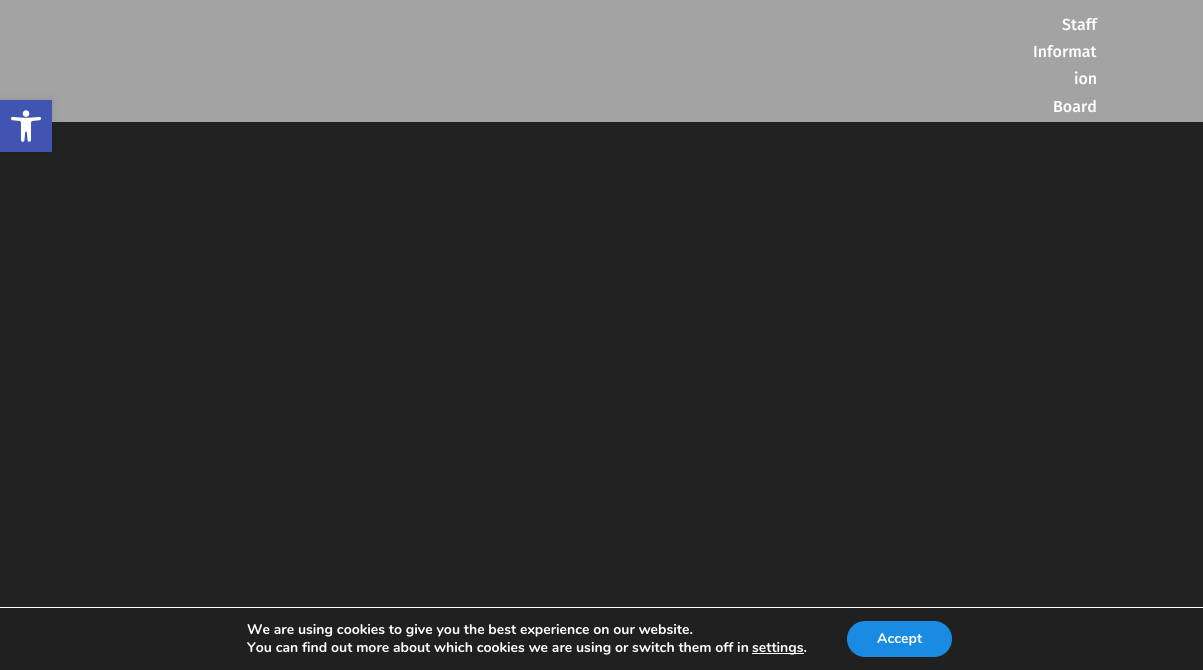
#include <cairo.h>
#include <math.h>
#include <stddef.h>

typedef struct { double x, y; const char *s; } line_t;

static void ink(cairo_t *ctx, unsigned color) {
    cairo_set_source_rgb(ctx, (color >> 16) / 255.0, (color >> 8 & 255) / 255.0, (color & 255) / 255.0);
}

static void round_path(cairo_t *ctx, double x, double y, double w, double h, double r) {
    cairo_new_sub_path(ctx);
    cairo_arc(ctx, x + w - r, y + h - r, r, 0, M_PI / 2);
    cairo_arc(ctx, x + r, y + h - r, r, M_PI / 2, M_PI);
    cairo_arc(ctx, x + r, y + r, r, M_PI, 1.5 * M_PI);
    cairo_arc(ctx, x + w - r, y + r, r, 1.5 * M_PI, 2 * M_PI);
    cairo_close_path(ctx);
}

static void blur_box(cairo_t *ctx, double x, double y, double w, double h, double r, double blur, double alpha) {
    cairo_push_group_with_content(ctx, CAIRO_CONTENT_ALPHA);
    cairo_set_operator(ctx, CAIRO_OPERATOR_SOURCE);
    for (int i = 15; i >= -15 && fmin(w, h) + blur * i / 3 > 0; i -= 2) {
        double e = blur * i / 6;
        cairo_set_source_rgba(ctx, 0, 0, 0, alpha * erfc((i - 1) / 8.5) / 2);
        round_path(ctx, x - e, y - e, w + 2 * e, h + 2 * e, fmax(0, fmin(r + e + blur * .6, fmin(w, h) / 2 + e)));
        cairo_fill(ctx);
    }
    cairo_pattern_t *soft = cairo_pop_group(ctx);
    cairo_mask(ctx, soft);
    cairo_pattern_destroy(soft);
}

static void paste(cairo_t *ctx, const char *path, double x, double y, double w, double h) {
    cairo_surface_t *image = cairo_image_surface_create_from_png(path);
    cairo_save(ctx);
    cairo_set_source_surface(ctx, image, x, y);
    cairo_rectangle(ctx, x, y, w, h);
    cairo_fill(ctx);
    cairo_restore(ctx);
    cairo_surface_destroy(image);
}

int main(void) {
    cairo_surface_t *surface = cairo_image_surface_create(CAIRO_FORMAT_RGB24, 1203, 670);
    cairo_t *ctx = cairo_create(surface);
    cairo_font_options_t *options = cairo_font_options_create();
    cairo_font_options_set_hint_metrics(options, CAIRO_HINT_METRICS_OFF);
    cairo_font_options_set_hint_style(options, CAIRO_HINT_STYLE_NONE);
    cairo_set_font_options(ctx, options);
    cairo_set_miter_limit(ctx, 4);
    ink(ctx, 0xA3A3A3);
    cairo_paint(ctx);
    cairo_select_font_face(ctx, "Fira Sans Medium", CAIRO_FONT_SLANT_NORMAL, CAIRO_FONT_WEIGHT_NORMAL);
    cairo_set_font_size(ctx, 16);
    ink(ctx, 0xFFFFFF);
    {
        static const line_t items[] = {
            {1062, 30, "Staff"},
            {1033, 57, "Informat"},
            {1074, 84, "ion"},
            {1053, 112, "Board"},
        };
        for (size_t i = 0; i < sizeof items / sizeof *items; i++) {
            cairo_move_to(ctx, items[i].x, items[i].y);
            cairo_show_text(ctx, items[i].s);
        }
    }
    ink(ctx, 0x222222);
    cairo_rectangle(ctx, 0, 122, 1203, 485);
    cairo_fill(ctx);
    ink(ctx, 0x000000);
    blur_box(ctx, 0, 100, 52, 52, 0, 5, 0.1);
    ink(ctx, 0x4054B2);
    cairo_rectangle(ctx, 0, 100, 52, 52);
    cairo_fill(ctx);
    paste(ctx, "media/1.png", 11, 110, 30, 32);
    ink(ctx, 0x202020);
    cairo_rectangle(ctx, 0, 608, 1203, 62);
    cairo_fill(ctx);
    ink(ctx, 0xFFFFFF);
    cairo_rectangle(ctx, 0, 607, 1203, 1);
    cairo_fill(ctx);
    cairo_select_font_face(ctx, "Nunito", CAIRO_FONT_SLANT_NORMAL, CAIRO_FONT_WEIGHT_BOLD);
    cairo_set_font_size(ctx, 14);
    cairo_move_to(ctx, 247, 634);
    cairo_show_text(ctx, "We are using cookies to give you the best experience on our website.");
    cairo_move_to(ctx, 247, 652);
    cairo_show_text(ctx, "You can find out more about which cookies we are using or switch them off in");
    cairo_rectangle(ctx, 752, 653, 52, 1);
    cairo_fill(ctx);
    cairo_move_to(ctx, 752, 652);
    cairo_show_text(ctx, "settings.");
    ink(ctx, 0x198BE0);
    round_path(ctx, 847, 621, 105, 36, 18);
    cairo_fill(ctx);
    ink(ctx, 0xFFFFFF);
    cairo_move_to(ctx, 877, 643);
    cairo_show_text(ctx, "Accept");
    cairo_surface_write_to_png(surface, "image.png");
    cairo_font_options_destroy(options);
    cairo_destroy(ctx);
    cairo_surface_destroy(surface);
    return 0;
}
